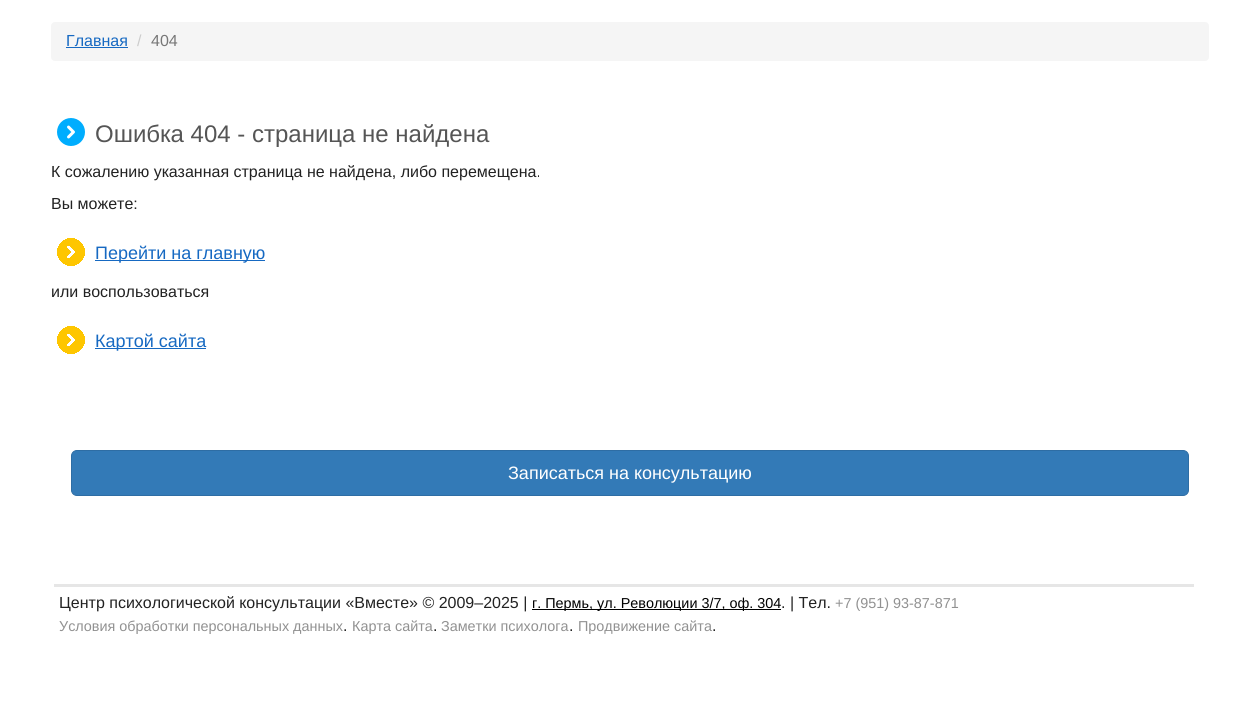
#include <cairo.h>
#include <math.h>
#include <stddef.h>


static void ink(cairo_t *ctx, unsigned color) {
    cairo_set_source_rgb(ctx, (color >> 16) / 255.0, (color >> 8 & 255) / 255.0, (color & 255) / 255.0);
}

static void round_path(cairo_t *ctx, double x, double y, double w, double h, double r) {
    cairo_new_sub_path(ctx);
    cairo_arc(ctx, x + w - r, y + h - r, r, 0, M_PI / 2);
    cairo_arc(ctx, x + r, y + h - r, r, M_PI / 2, M_PI);
    cairo_arc(ctx, x + r, y + r, r, M_PI, 1.5 * M_PI);
    cairo_arc(ctx, x + w - r, y + r, r, 1.5 * M_PI, 2 * M_PI);
    cairo_close_path(ctx);
}

static void paste(cairo_t *ctx, const char *path, double x, double y, double w, double h) {
    cairo_surface_t *image = cairo_image_surface_create_from_png(path);
    cairo_save(ctx);
    cairo_set_source_surface(ctx, image, x, y);
    cairo_rectangle(ctx, x, y, w, h);
    cairo_fill(ctx);
    cairo_restore(ctx);
    cairo_surface_destroy(image);
}

int main(void) {
    cairo_surface_t *surface = cairo_image_surface_create(CAIRO_FORMAT_RGB24, 1248, 718);
    cairo_t *ctx = cairo_create(surface);
    cairo_font_options_t *options = cairo_font_options_create();
    cairo_font_options_set_hint_metrics(options, CAIRO_HINT_METRICS_OFF);
    cairo_font_options_set_hint_style(options, CAIRO_HINT_STYLE_NONE);
    cairo_set_font_options(ctx, options);
    cairo_set_miter_limit(ctx, 4);
    ink(ctx, 0xFFFFFF);
    cairo_paint(ctx);
    ink(ctx, 0xF5F5F5);
    round_path(ctx, 51, 22, 1158, 39, 4);
    cairo_fill(ctx);
    cairo_select_font_face(ctx, "Liberation Sans", CAIRO_FONT_SLANT_NORMAL, CAIRO_FONT_WEIGHT_NORMAL);
    cairo_set_font_size(ctx, 16);
    ink(ctx, 0x1669C2);
    cairo_move_to(ctx, 66, 46);
    cairo_show_text(ctx, "Главная");
    cairo_rectangle(ctx, 66, 47, 62, 1);
    cairo_fill(ctx);
    ink(ctx, 0xCCCCCC);
    cairo_move_to(ctx, 137, 46);
    cairo_show_text(ctx, "/");
    ink(ctx, 0x777777);
    cairo_move_to(ctx, 151, 46);
    cairo_show_text(ctx, "404");
    paste(ctx, "media/1.png", 57, 118, 28, 28);
    cairo_set_font_size(ctx, 24);
    ink(ctx, 0x555555);
    cairo_move_to(ctx, 95, 142);
    cairo_show_text(ctx, "Ошибка 404 - страница не найдена");
    cairo_set_font_size(ctx, 16);
    ink(ctx, 0x222222);
    cairo_move_to(ctx, 51, 177);
    cairo_show_text(ctx, "К сожалению указанная страница не найдена, либо перемещена.");
    cairo_move_to(ctx, 51, 209);
    cairo_show_text(ctx, "Вы можете:");
    paste(ctx, "media/2.png", 57, 238, 28, 28);
    ink(ctx, 0x1669C2);
    cairo_rectangle(ctx, 95, 260, 170, 1);
    cairo_fill(ctx);
    cairo_set_font_size(ctx, 18);
    cairo_move_to(ctx, 95, 259);
    cairo_show_text(ctx, "Перейти на главную");
    cairo_set_font_size(ctx, 16);
    ink(ctx, 0x222222);
    cairo_move_to(ctx, 51, 297);
    cairo_show_text(ctx, "или воспользоваться");
    paste(ctx, "media/2.png", 57, 326, 28, 28);
    ink(ctx, 0x1669C2);
    cairo_rectangle(ctx, 95, 348, 111, 1);
    cairo_fill(ctx);
    cairo_set_font_size(ctx, 18);
    cairo_move_to(ctx, 95, 347);
    cairo_show_text(ctx, "Картой сайта");
    ink(ctx, 0x337AB7);
    round_path(ctx, 71.5, 450.5, 1117, 45, 5.5);
    cairo_fill_preserve(ctx);
    ink(ctx, 0x2E6DA4);
    cairo_set_line_width(ctx, 1);
    cairo_stroke(ctx);
    ink(ctx, 0xFFFFFF);
    cairo_move_to(ctx, 508, 479);
    cairo_show_text(ctx, "Записаться на консультацию");
    ink(ctx, 0xE6E6E6);
    cairo_rectangle(ctx, 54, 584, 1140, 3);
    cairo_fill(ctx);
    cairo_set_font_size(ctx, 16);
    ink(ctx, 0x222222);
    cairo_move_to(ctx, 59, 608);
    cairo_show_text(ctx, "Центр психологической консультации «Вместе» © 2009–2025 |");
    ink(ctx, 0x000000);
    cairo_rectangle(ctx, 532, 609, 249, 1);
    cairo_fill(ctx);
    cairo_set_font_size(ctx, 14.4);
    cairo_move_to(ctx, 532, 608);
    cairo_show_text(ctx, "г. Пермь, ул. Революции 3/7, оф. 304");
    cairo_set_font_size(ctx, 16);
    ink(ctx, 0x222222);
    cairo_move_to(ctx, 781, 608);
    cairo_show_text(ctx, ". | Тел.");
    cairo_set_font_size(ctx, 14.4);
    ink(ctx, 0x919191);
    cairo_move_to(ctx, 835, 608);
    cairo_show_text(ctx, "+7 (951) 93-87-871");
    cairo_move_to(ctx, 59, 631);
    cairo_show_text(ctx, "Условия обработки персональных данных");
    cairo_set_font_size(ctx, 16);
    ink(ctx, 0x222222);
    cairo_move_to(ctx, 343, 631);
    cairo_show_text(ctx, ".");
    cairo_set_font_size(ctx, 14.4);
    ink(ctx, 0x919191);
    cairo_move_to(ctx, 352, 631);
    cairo_show_text(ctx, "Карта сайта");
    cairo_set_font_size(ctx, 16);
    ink(ctx, 0x222222);
    cairo_move_to(ctx, 433, 631);
    cairo_show_text(ctx, ".");
    cairo_set_font_size(ctx, 14.4);
    ink(ctx, 0x919191);
    cairo_move_to(ctx, 441, 631);
    cairo_show_text(ctx, "Заметки психолога");
    cairo_set_font_size(ctx, 16);
    ink(ctx, 0x222222);
    cairo_move_to(ctx, 569, 631);
    cairo_show_text(ctx, ".");
    cairo_set_font_size(ctx, 14.4);
    ink(ctx, 0x919191);
    cairo_move_to(ctx, 578, 631);
    cairo_show_text(ctx, "Продвижение сайта");
    cairo_set_font_size(ctx, 16);
    ink(ctx, 0x222222);
    cairo_move_to(ctx, 712, 631);
    cairo_show_text(ctx, ".");
    cairo_surface_write_to_png(surface, "image.png");
    cairo_font_options_destroy(options);
    cairo_destroy(ctx);
    cairo_surface_destroy(surface);
    return 0;
}
